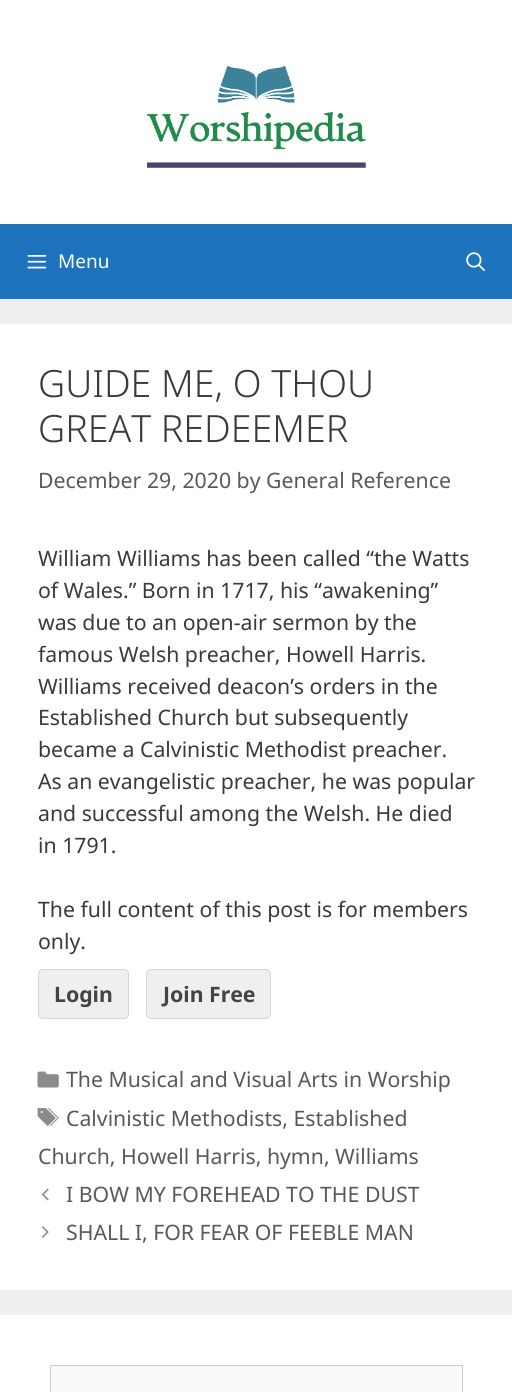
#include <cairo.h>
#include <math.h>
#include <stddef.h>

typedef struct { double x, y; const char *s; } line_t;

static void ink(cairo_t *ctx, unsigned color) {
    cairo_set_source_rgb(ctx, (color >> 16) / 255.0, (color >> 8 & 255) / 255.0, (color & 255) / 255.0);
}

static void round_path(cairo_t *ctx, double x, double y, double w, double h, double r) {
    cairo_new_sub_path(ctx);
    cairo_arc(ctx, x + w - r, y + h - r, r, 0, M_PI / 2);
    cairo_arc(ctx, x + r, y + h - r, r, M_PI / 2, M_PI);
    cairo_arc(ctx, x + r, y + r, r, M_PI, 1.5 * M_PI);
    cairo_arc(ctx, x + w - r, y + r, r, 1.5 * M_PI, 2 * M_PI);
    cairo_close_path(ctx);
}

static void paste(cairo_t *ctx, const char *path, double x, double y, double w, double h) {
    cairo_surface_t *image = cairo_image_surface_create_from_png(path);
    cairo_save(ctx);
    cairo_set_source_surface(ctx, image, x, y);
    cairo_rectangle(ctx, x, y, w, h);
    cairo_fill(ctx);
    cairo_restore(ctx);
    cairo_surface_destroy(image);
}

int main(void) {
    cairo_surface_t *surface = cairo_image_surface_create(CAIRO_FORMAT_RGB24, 512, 1392);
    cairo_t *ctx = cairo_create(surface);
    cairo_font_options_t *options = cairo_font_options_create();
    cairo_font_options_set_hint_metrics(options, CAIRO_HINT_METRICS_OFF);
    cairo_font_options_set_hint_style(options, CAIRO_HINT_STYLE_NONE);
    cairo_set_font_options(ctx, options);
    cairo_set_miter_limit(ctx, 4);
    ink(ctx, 0xEFEFEF);
    cairo_paint(ctx);
    ink(ctx, 0xFFFFFF);
    cairo_rectangle(ctx, 0, 0, 512, 224);
    cairo_fill(ctx);
    paste(ctx, "media/1.png", 147, 65, 219, 103);
    ink(ctx, 0x1E73BE);
    cairo_rectangle(ctx, 0, 224, 512, 75);
    cairo_fill(ctx);
    paste(ctx, "media/2.png", 27, 255, 20, 14);
    cairo_select_font_face(ctx, "Noto Sans", CAIRO_FONT_SLANT_NORMAL, CAIRO_FONT_WEIGHT_NORMAL);
    cairo_set_font_size(ctx, 19);
    ink(ctx, 0xFFFFFF);
    cairo_move_to(ctx, 58, 268);
    cairo_show_text(ctx, "Menu");
    paste(ctx, "media/3.png", 466, 252, 19, 19);
    cairo_rectangle(ctx, 0, 324, 512, 966);
    cairo_fill(ctx);
    cairo_select_font_face(ctx, "Noto Sans Light", CAIRO_FONT_SLANT_NORMAL, CAIRO_FONT_WEIGHT_NORMAL);
    cairo_set_font_size(ctx, 37.5);
    ink(ctx, 0x3A3A3A);
    cairo_move_to(ctx, 38, 397);
    cairo_show_text(ctx, "GUIDE ME, O THOU");
    cairo_move_to(ctx, 38, 442);
    cairo_show_text(ctx, "GREAT REDEEMER");
    cairo_select_font_face(ctx, "Noto Sans", CAIRO_FONT_SLANT_NORMAL, CAIRO_FONT_WEIGHT_NORMAL);
    cairo_set_font_size(ctx, 21.25);
    ink(ctx, 0x595959);
    cairo_move_to(ctx, 38, 488);
    cairo_show_text(ctx, "December 29, 2020 by General Reference");
    ink(ctx, 0x3A3A3A);
    {
        static const line_t items[] = {
            {38, 566, "William Williams has been called “the Watts"},
            {38, 598, "of Wales.” Born in 1717, his “awakening”"},
            {38, 630, "was due to an open-air sermon by the"},
            {38, 662, "famous Welsh preacher, Howell Harris."},
            {38, 694, "Williams received deacon’s orders in the"},
            {38, 725, "Established Church but subsequently"},
            {38, 757, "became a Calvinistic Methodist preacher."},
            {38, 789, "As an evangelistic preacher, he was popular"},
            {38, 821, "and successful among the Welsh. He died"},
            {38, 853, "in 1791."},
            {38, 917, "The full content of this post is for members"},
            {38, 949, "only."},
        };
        for (size_t i = 0; i < sizeof items / sizeof *items; i++) {
            cairo_move_to(ctx, items[i].x, items[i].y);
            cairo_show_text(ctx, items[i].s);
        }
    }
    ink(ctx, 0xEFEFEF);
    round_path(ctx, 38.5, 969.5, 90, 49, 4.5);
    cairo_fill_preserve(ctx);
    ink(ctx, 0xD6D6D6);
    cairo_set_line_width(ctx, 1);
    cairo_stroke(ctx);
    cairo_select_font_face(ctx, "Noto Sans", CAIRO_FONT_SLANT_NORMAL, CAIRO_FONT_WEIGHT_BOLD);
    ink(ctx, 0x444444);
    cairo_move_to(ctx, 54, 1002);
    cairo_show_text(ctx, "Login");
    ink(ctx, 0xEFEFEF);
    round_path(ctx, 146.5, 969.5, 124, 49, 4.5);
    cairo_fill_preserve(ctx);
    ink(ctx, 0xD6D6D6);
    cairo_stroke(ctx);
    ink(ctx, 0x444444);
    cairo_move_to(ctx, 163, 1002);
    cairo_show_text(ctx, "Join Free");
    paste(ctx, "media/4.png", 37, 1071, 22, 17);
    cairo_select_font_face(ctx, "Noto Sans", CAIRO_FONT_SLANT_NORMAL, CAIRO_FONT_WEIGHT_NORMAL);
    ink(ctx, 0x595959);
    cairo_move_to(ctx, 66, 1087);
    cairo_show_text(ctx, "The Musical and Visual Arts in Worship");
    paste(ctx, "media/5.png", 37, 1108, 22, 18);
    cairo_move_to(ctx, 66, 1126);
    cairo_show_text(ctx, "Calvinistic Methodists, Established");
    cairo_move_to(ctx, 38, 1164);
    cairo_show_text(ctx, "Church, Howell Harris, hymn, Williams");
    paste(ctx, "media/6.png", 41, 1188, 8, 13);
    cairo_move_to(ctx, 66, 1202);
    cairo_show_text(ctx, "I BOW MY FOREHEAD TO THE DUST");
    paste(ctx, "media/7.png", 41, 1226, 8, 12);
    cairo_move_to(ctx, 66, 1240);
    cairo_show_text(ctx, "SHALL I, FOR FEAR OF FEEBLE MAN");
    ink(ctx, 0xFFFFFF);
    cairo_rectangle(ctx, 0, 1315, 512, 77);
    cairo_fill(ctx);
    ink(ctx, 0xFAFAFA);
    cairo_rectangle(ctx, 50.5, 1365.5, 412, 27);
    cairo_fill_preserve(ctx);
    ink(ctx, 0xCCCCCC);
    cairo_stroke(ctx);
    cairo_surface_write_to_png(surface, "image.png");
    cairo_font_options_destroy(options);
    cairo_destroy(ctx);
    cairo_surface_destroy(surface);
    return 0;
}
